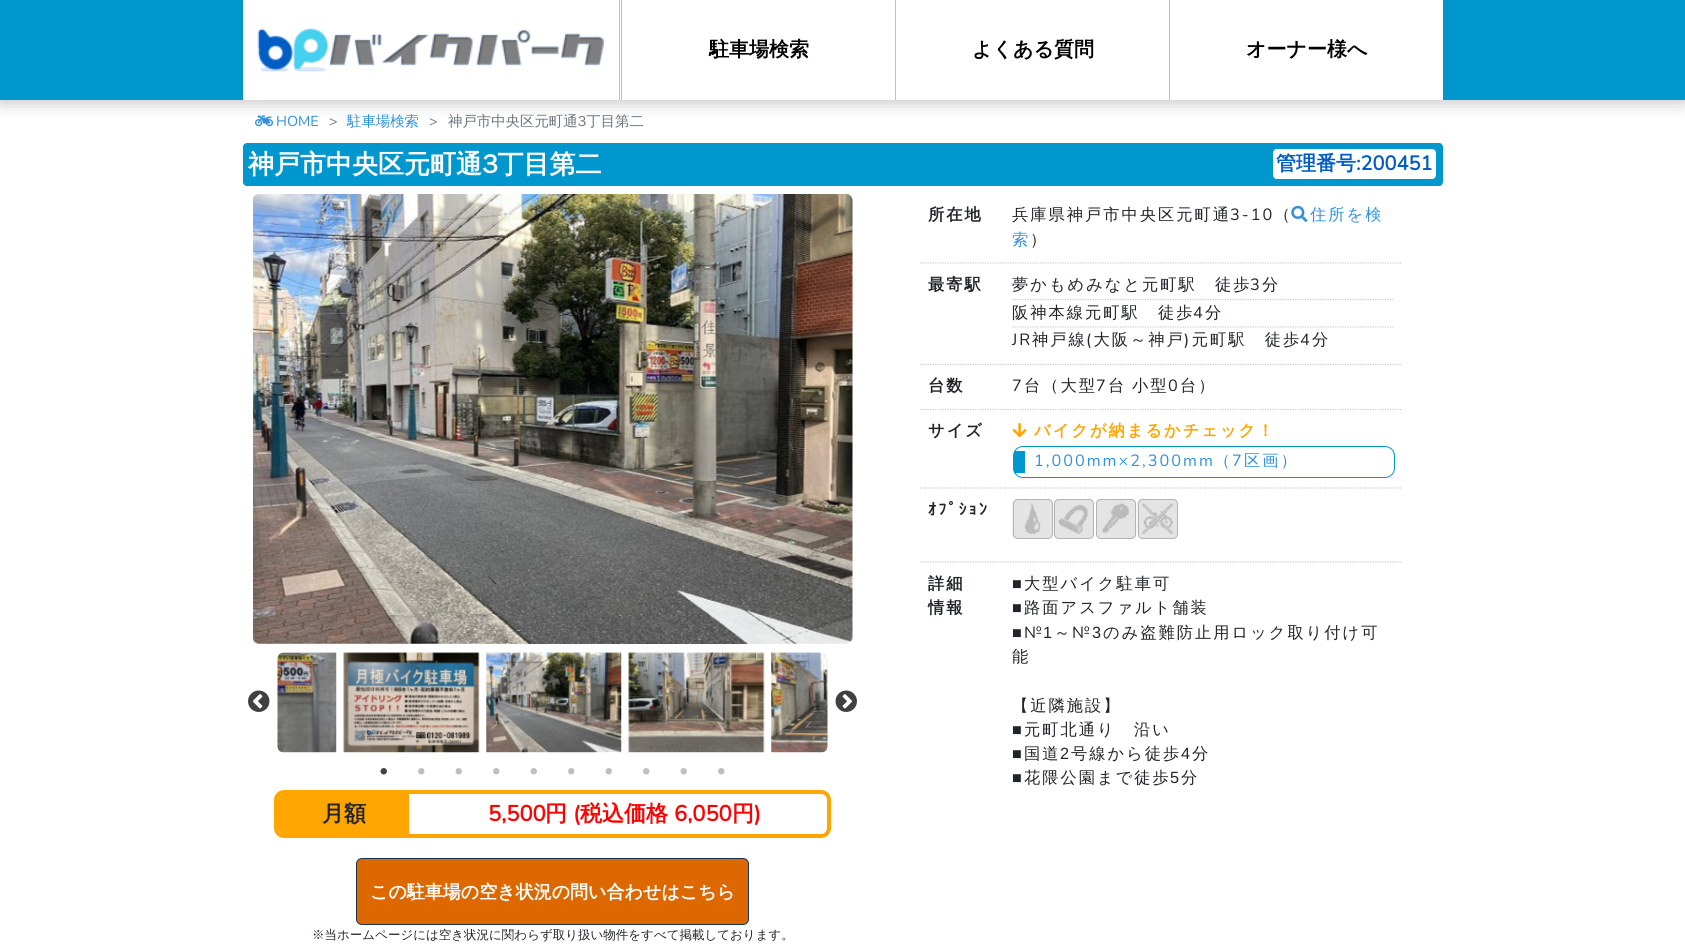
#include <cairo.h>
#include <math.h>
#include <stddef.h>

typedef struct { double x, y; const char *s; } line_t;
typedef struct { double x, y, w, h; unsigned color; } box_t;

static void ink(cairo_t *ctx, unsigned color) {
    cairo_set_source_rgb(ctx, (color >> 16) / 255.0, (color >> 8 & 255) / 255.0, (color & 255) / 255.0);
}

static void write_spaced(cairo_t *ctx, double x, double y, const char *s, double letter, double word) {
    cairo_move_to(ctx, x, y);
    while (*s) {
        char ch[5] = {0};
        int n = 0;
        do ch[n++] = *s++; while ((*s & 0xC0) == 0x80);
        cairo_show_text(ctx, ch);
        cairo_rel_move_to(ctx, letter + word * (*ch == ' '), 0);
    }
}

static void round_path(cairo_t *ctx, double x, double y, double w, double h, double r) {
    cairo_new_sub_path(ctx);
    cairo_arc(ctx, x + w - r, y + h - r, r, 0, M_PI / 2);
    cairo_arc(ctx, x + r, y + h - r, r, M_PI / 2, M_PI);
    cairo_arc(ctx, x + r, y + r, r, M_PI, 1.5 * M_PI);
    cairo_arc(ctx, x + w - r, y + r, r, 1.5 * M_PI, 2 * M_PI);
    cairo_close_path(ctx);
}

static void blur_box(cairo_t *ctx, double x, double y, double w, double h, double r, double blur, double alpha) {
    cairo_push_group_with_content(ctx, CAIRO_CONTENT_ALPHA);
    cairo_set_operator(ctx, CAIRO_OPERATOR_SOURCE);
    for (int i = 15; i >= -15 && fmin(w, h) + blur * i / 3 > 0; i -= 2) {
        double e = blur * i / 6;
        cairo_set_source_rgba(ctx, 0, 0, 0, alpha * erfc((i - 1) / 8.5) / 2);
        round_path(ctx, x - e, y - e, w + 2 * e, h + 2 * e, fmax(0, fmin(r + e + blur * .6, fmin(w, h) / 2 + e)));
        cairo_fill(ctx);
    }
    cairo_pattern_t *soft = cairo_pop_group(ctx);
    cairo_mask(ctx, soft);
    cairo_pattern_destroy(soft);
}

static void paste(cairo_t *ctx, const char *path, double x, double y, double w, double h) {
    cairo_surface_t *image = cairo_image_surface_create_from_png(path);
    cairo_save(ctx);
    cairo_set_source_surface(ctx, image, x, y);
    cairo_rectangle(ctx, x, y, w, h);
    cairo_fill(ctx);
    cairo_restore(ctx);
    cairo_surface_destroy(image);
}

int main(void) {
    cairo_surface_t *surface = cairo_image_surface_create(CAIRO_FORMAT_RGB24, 1685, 945);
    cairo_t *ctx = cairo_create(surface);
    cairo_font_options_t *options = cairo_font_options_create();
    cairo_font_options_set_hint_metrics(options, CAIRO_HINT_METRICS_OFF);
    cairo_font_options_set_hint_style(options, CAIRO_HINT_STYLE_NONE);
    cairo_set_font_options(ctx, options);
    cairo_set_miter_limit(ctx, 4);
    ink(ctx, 0xFFFFFF);
    cairo_paint(ctx);
    ink(ctx, 0x000000);
    blur_box(ctx, 0, 0, 1685, 100, 0, 9.5, 0.3);
    ink(ctx, 0x0097CE);
    cairo_rectangle(ctx, 0, 0, 1685, 100);
    cairo_fill(ctx);
    ink(ctx, 0xFFFFFF);
    cairo_rectangle(ctx, 243, 0, 1200, 100);
    cairo_fill(ctx);
    paste(ctx, "media/1.png", 257, 28, 348, 44);
    {
        static const box_t items[] = {
            {619, 0, 1, 100, 0xC0C0C0},
            {621, 0, 1, 100, 0xC0C0C0},
            {895, 0, 1, 100, 0xC0C0C0},
        };
        for (size_t i = 0; i < sizeof items / sizeof *items; i++) {
            ink(ctx, items[i].color);
            cairo_rectangle(ctx, items[i].x, items[i].y, items[i].w, items[i].h);
            cairo_fill(ctx);
        }
    }
    cairo_select_font_face(ctx, "WenQuanYi Zen Hei", CAIRO_FONT_SLANT_NORMAL, CAIRO_FONT_WEIGHT_BOLD);
    cairo_set_font_size(ctx, 20);
    ink(ctx, 0x000000);
    cairo_move_to(ctx, 709, 56);
    cairo_show_text(ctx, "駐車場検索");
    ink(ctx, 0xC0C0C0);
    cairo_rectangle(ctx, 1169, 0, 1, 100);
    cairo_fill(ctx);
    ink(ctx, 0x000000);
    cairo_move_to(ctx, 972, 56);
    cairo_show_text(ctx, "よくある質問");
    cairo_move_to(ctx, 1246, 56);
    cairo_show_text(ctx, "オーナー様へ");
    paste(ctx, "media/2.png", 255, 115, 18, 12);
    cairo_select_font_face(ctx, "Nunito ExtraLight", CAIRO_FONT_SLANT_NORMAL, CAIRO_FONT_WEIGHT_NORMAL);
    cairo_set_font_size(ctx, 14.4);
    ink(ctx, 0x3490DC);
    cairo_move_to(ctx, 276, 126);
    cairo_show_text(ctx, "HOME");
    ink(ctx, 0x6C757D);
    cairo_move_to(ctx, 329, 126);
    cairo_show_text(ctx, ">");
    cairo_select_font_face(ctx, "WenQuanYi Zen Hei Medium", CAIRO_FONT_SLANT_NORMAL, CAIRO_FONT_WEIGHT_NORMAL);
    ink(ctx, 0x3490DC);
    cairo_move_to(ctx, 347, 126);
    cairo_show_text(ctx, "駐車場検索");
    cairo_select_font_face(ctx, "Nunito ExtraLight", CAIRO_FONT_SLANT_NORMAL, CAIRO_FONT_WEIGHT_NORMAL);
    ink(ctx, 0x6C757D);
    cairo_move_to(ctx, 429, 126);
    cairo_show_text(ctx, ">");
    cairo_select_font_face(ctx, "WenQuanYi Zen Hei Medium", CAIRO_FONT_SLANT_NORMAL, CAIRO_FONT_WEIGHT_NORMAL);
    cairo_move_to(ctx, 448, 126);
    cairo_show_text(ctx, "神戸市中央区元町通3丁目第二");
    ink(ctx, 0x0097CE);
    round_path(ctx, 243, 143, 1200, 43, 4);
    cairo_fill(ctx);
    cairo_select_font_face(ctx, "WenQuanYi Zen Hei", CAIRO_FONT_SLANT_NORMAL, CAIRO_FONT_WEIGHT_BOLD);
    cairo_set_font_size(ctx, 26);
    ink(ctx, 0xFFFFFF);
    cairo_move_to(ctx, 248, 173);
    cairo_show_text(ctx, "神戸市中央区元町通3丁目第二");
    round_path(ctx, 1273, 149, 163, 30, 4);
    cairo_fill(ctx);
    cairo_set_font_size(ctx, 20);
    ink(ctx, 0x005DC5);
    cairo_move_to(ctx, 1276, 170);
    cairo_show_text(ctx, "管理番号");
    cairo_select_font_face(ctx, "Nunito", CAIRO_FONT_SLANT_NORMAL, CAIRO_FONT_WEIGHT_BOLD);
    cairo_move_to(ctx, 1356, 170);
    cairo_show_text(ctx, ":200451");
    cairo_new_path(ctx);
    cairo_move_to(ctx, 920, 263);
    cairo_line_to(ctx, 1402.5, 263);
    ink(ctx, 0xCCCCCC);
    cairo_set_line_width(ctx, 1.2);
    cairo_set_dash(ctx, (double[]){1.25, 1.25}, 2, 0);
    cairo_stroke(ctx);
    cairo_select_font_face(ctx, "WenQuanYi Zen Hei", CAIRO_FONT_SLANT_NORMAL, CAIRO_FONT_WEIGHT_BOLD);
    cairo_set_font_size(ctx, 16.25);
    ink(ctx, 0x212529);
    write_spaced(ctx, 928, 220, "所在地", 2, 0);
    cairo_select_font_face(ctx, "WenQuanYi Zen Hei Medium", CAIRO_FONT_SLANT_NORMAL, CAIRO_FONT_WEIGHT_NORMAL);
    write_spaced(ctx, 1012, 220, "兵庫県神戸市中央区元町通", 2, 0);
    paste(ctx, "media/3.png", 1291, 205, 17, 17);
    ink(ctx, 0x3490DC);
    write_spaced(ctx, 1310, 220, "住所を検", 2, 0);
    write_spaced(ctx, 1012, 245, "索", 2, 0);
    cairo_select_font_face(ctx, "Nunito ExtraLight", CAIRO_FONT_SLANT_NORMAL, CAIRO_FONT_WEIGHT_NORMAL);
    ink(ctx, 0x212529);
    write_spaced(ctx, 1230, 220, "3-10", 2, 0);
    cairo_select_font_face(ctx, "WenQuanYi Zen Hei Medium", CAIRO_FONT_SLANT_NORMAL, CAIRO_FONT_WEIGHT_NORMAL);
    write_spaced(ctx, 1274, 220, "（", 2, 0);
    write_spaced(ctx, 1030, 245, "）", 2, 0);
    cairo_new_path(ctx);
    cairo_move_to(ctx, 920, 364.5);
    cairo_line_to(ctx, 1402.5, 364.5);
    ink(ctx, 0xCCCCCC);
    cairo_stroke(ctx);
    cairo_select_font_face(ctx, "WenQuanYi Zen Hei", CAIRO_FONT_SLANT_NORMAL, CAIRO_FONT_WEIGHT_BOLD);
    ink(ctx, 0x212529);
    write_spaced(ctx, 928, 290, "最寄駅", 2, 0);
    cairo_new_path(ctx);
    cairo_move_to(ctx, 1012.5, 299.5);
    cairo_line_to(ctx, 1395, 299.5);
    ink(ctx, 0xCCCCCC);
    cairo_stroke(ctx);
    cairo_select_font_face(ctx, "WenQuanYi Zen Hei Medium", CAIRO_FONT_SLANT_NORMAL, CAIRO_FONT_WEIGHT_NORMAL);
    ink(ctx, 0x212529);
    write_spaced(ctx, 1012, 290, "夢かもめみなと元町駅　徒歩", 2, 0);
    cairo_select_font_face(ctx, "Nunito ExtraLight", CAIRO_FONT_SLANT_NORMAL, CAIRO_FONT_WEIGHT_NORMAL);
    write_spaced(ctx, 1250, 290, "3", 2, 0);
    cairo_select_font_face(ctx, "WenQuanYi Zen Hei Medium", CAIRO_FONT_SLANT_NORMAL, CAIRO_FONT_WEIGHT_NORMAL);
    write_spaced(ctx, 1262, 290, "分", 2, 0);
    cairo_new_path(ctx);
    cairo_move_to(ctx, 1012.5, 327);
    cairo_line_to(ctx, 1395, 327);
    ink(ctx, 0xCCCCCC);
    cairo_stroke(ctx);
    ink(ctx, 0x212529);
    write_spaced(ctx, 1012, 318, "阪神本線元町駅　徒歩", 2, 0);
    cairo_select_font_face(ctx, "Nunito ExtraLight", CAIRO_FONT_SLANT_NORMAL, CAIRO_FONT_WEIGHT_NORMAL);
    write_spaced(ctx, 1193, 318, "4", 2, 0);
    cairo_select_font_face(ctx, "WenQuanYi Zen Hei Medium", CAIRO_FONT_SLANT_NORMAL, CAIRO_FONT_WEIGHT_NORMAL);
    write_spaced(ctx, 1205, 318, "分", 2, 0);
    cairo_select_font_face(ctx, "Nunito ExtraLight", CAIRO_FONT_SLANT_NORMAL, CAIRO_FONT_WEIGHT_NORMAL);
    write_spaced(ctx, 1012, 345, "JR", 2, 0);
    cairo_select_font_face(ctx, "WenQuanYi Zen Hei Medium", CAIRO_FONT_SLANT_NORMAL, CAIRO_FONT_WEIGHT_NORMAL);
    write_spaced(ctx, 1032, 345, "神戸線 大阪～神戸 元町駅　徒歩", 2, 0);
    write_spaced(ctx, 1312, 345, "分", 2, 0);
    cairo_select_font_face(ctx, "Nunito ExtraLight", CAIRO_FONT_SLANT_NORMAL, CAIRO_FONT_WEIGHT_NORMAL);
    {
        static const line_t items[] = {
            {1086, 345, "("},
            {1184, 345, ")"},
            {1300, 345, "4"},
        };
        for (size_t i = 0; i < sizeof items / sizeof *items; i++) {
            write_spaced(ctx, items[i].x, items[i].y, items[i].s, 2, 0);
        }
    }
    cairo_new_path(ctx);
    cairo_move_to(ctx, 920, 409.5);
    cairo_line_to(ctx, 1402.5, 409.5);
    ink(ctx, 0xCCCCCC);
    cairo_stroke(ctx);
    cairo_select_font_face(ctx, "WenQuanYi Zen Hei", CAIRO_FONT_SLANT_NORMAL, CAIRO_FONT_WEIGHT_BOLD);
    ink(ctx, 0x212529);
    write_spaced(ctx, 928, 391, "台数", 2, 0);
    cairo_select_font_face(ctx, "Nunito ExtraLight", CAIRO_FONT_SLANT_NORMAL, CAIRO_FONT_WEIGHT_NORMAL);
    write_spaced(ctx, 1012, 391, "7", 2, 0);
    cairo_select_font_face(ctx, "WenQuanYi Zen Hei Medium", CAIRO_FONT_SLANT_NORMAL, CAIRO_FONT_WEIGHT_NORMAL);
    write_spaced(ctx, 1024, 391, "台（大型", 2, 0);
    cairo_select_font_face(ctx, "Nunito ExtraLight", CAIRO_FONT_SLANT_NORMAL, CAIRO_FONT_WEIGHT_NORMAL);
    write_spaced(ctx, 1096, 391, "7", 2, 0);
    cairo_select_font_face(ctx, "WenQuanYi Zen Hei Medium", CAIRO_FONT_SLANT_NORMAL, CAIRO_FONT_WEIGHT_NORMAL);
    write_spaced(ctx, 1108, 391, "台 小型", 2, -1);
    cairo_select_font_face(ctx, "Nunito ExtraLight", CAIRO_FONT_SLANT_NORMAL, CAIRO_FONT_WEIGHT_NORMAL);
    write_spaced(ctx, 1168, 391, "0", 2, 0);
    cairo_select_font_face(ctx, "WenQuanYi Zen Hei Medium", CAIRO_FONT_SLANT_NORMAL, CAIRO_FONT_WEIGHT_NORMAL);
    write_spaced(ctx, 1180, 391, "台）", 2, 0);
    cairo_new_path(ctx);
    cairo_move_to(ctx, 920, 488);
    cairo_line_to(ctx, 1402.5, 488);
    ink(ctx, 0xCCCCCC);
    cairo_stroke(ctx);
    cairo_select_font_face(ctx, "WenQuanYi Zen Hei", CAIRO_FONT_SLANT_NORMAL, CAIRO_FONT_WEIGHT_BOLD);
    ink(ctx, 0x212529);
    write_spaced(ctx, 928, 436, "サイズ", 2, 0);
    paste(ctx, "media/4.png", 1012, 423, 15, 15);
    ink(ctx, 0xFFA500);
    write_spaced(ctx, 1034, 436, "バイクが納まるかチェック！", 2, 0);
    round_path(ctx, 1013.5, 446.5, 381, 31, 9.5);
    ink(ctx, 0x0097CE);
    cairo_set_line_width(ctx, 1);
    cairo_set_dash(ctx, NULL, 0, 0);
    cairo_stroke(ctx);
    cairo_rectangle(ctx, 1014, 451, 11, 22);
    cairo_fill(ctx);
    cairo_select_font_face(ctx, "Nunito ExtraLight", CAIRO_FONT_SLANT_NORMAL, CAIRO_FONT_WEIGHT_NORMAL);
    ink(ctx, 0x3490DC);
    write_spaced(ctx, 1034, 466, "1,000mm×2,300mm", 2, 0);
    cairo_select_font_face(ctx, "WenQuanYi Zen Hei Medium", CAIRO_FONT_SLANT_NORMAL, CAIRO_FONT_WEIGHT_NORMAL);
    write_spaced(ctx, 1214, 466, "（", 2, 0);
    cairo_select_font_face(ctx, "Nunito ExtraLight", CAIRO_FONT_SLANT_NORMAL, CAIRO_FONT_WEIGHT_NORMAL);
    write_spaced(ctx, 1232, 466, "7", 2, 0);
    cairo_select_font_face(ctx, "WenQuanYi Zen Hei Medium", CAIRO_FONT_SLANT_NORMAL, CAIRO_FONT_WEIGHT_NORMAL);
    write_spaced(ctx, 1244, 466, "区画）", 2, 0);
    cairo_new_path(ctx);
    cairo_move_to(ctx, 920, 562);
    cairo_line_to(ctx, 1402.5, 562);
    ink(ctx, 0xCCCCCC);
    cairo_set_line_width(ctx, 1.2);
    cairo_set_dash(ctx, (double[]){1.25, 1.25}, 2, 0);
    cairo_stroke(ctx);
    cairo_select_font_face(ctx, "IPAPGothic", CAIRO_FONT_SLANT_NORMAL, CAIRO_FONT_WEIGHT_BOLD);
    ink(ctx, 0x212529);
    write_spaced(ctx, 928, 515, "ｵﾌﾟｼｮﾝ", 2, 0);
    paste(ctx, "media/5.png", 1012, 499, 41, 40);
    round_path(ctx, 1013.5, 499.5, 39, 39, 4.5);
    ink(ctx, 0xB3B3B3);
    cairo_set_line_width(ctx, 1);
    cairo_set_dash(ctx, NULL, 0, 0);
    cairo_stroke(ctx);
    paste(ctx, "media/6.png", 1053, 499, 41, 40);
    round_path(ctx, 1054.5, 499.5, 39, 39, 4.5);
    cairo_stroke(ctx);
    paste(ctx, "media/7.png", 1096, 499, 41, 40);
    round_path(ctx, 1096.5, 499.5, 39, 39, 4.5);
    cairo_stroke(ctx);
    paste(ctx, "media/8.png", 1137, 499, 41, 40);
    round_path(ctx, 1138.5, 499.5, 39, 39, 4.5);
    cairo_stroke(ctx);
    cairo_select_font_face(ctx, "WenQuanYi Zen Hei", CAIRO_FONT_SLANT_NORMAL, CAIRO_FONT_WEIGHT_BOLD);
    ink(ctx, 0x212529);
    write_spaced(ctx, 928, 589, "詳細", 2, 0);
    write_spaced(ctx, 928, 613, "情報", 2, 0);
    cairo_select_font_face(ctx, "Liberation Sans", CAIRO_FONT_SLANT_NORMAL, CAIRO_FONT_WEIGHT_NORMAL);
    write_spaced(ctx, 1012, 589, "■", 2, 0);
    cairo_select_font_face(ctx, "WenQuanYi Zen Hei Medium", CAIRO_FONT_SLANT_NORMAL, CAIRO_FONT_WEIGHT_NORMAL);
    write_spaced(ctx, 1024, 589, "大型バイク駐車可", 2, 0);
    cairo_select_font_face(ctx, "Liberation Sans", CAIRO_FONT_SLANT_NORMAL, CAIRO_FONT_WEIGHT_NORMAL);
    write_spaced(ctx, 1012, 613, "■", 2, 0);
    cairo_select_font_face(ctx, "WenQuanYi Zen Hei Medium", CAIRO_FONT_SLANT_NORMAL, CAIRO_FONT_WEIGHT_NORMAL);
    write_spaced(ctx, 1024, 613, "路面アスファルト舗装", 2, 0);
    cairo_select_font_face(ctx, "Liberation Sans", CAIRO_FONT_SLANT_NORMAL, CAIRO_FONT_WEIGHT_NORMAL);
    write_spaced(ctx, 1012, 638, "■", 2, 0);
    cairo_select_font_face(ctx, "Nunito ExtraLight", CAIRO_FONT_SLANT_NORMAL, CAIRO_FONT_WEIGHT_NORMAL);
    write_spaced(ctx, 1024, 638, "№", 2, 0);
    cairo_select_font_face(ctx, "Liberation Sans", CAIRO_FONT_SLANT_NORMAL, CAIRO_FONT_WEIGHT_NORMAL);
    write_spaced(ctx, 1043, 638, "1", 2, 0);
    cairo_select_font_face(ctx, "WenQuanYi Zen Hei Medium", CAIRO_FONT_SLANT_NORMAL, CAIRO_FONT_WEIGHT_NORMAL);
    write_spaced(ctx, 1054, 638, "～", 2, 0);
    cairo_select_font_face(ctx, "Nunito ExtraLight", CAIRO_FONT_SLANT_NORMAL, CAIRO_FONT_WEIGHT_NORMAL);
    write_spaced(ctx, 1072, 638, "№", 2, 0);
    cairo_select_font_face(ctx, "Liberation Sans", CAIRO_FONT_SLANT_NORMAL, CAIRO_FONT_WEIGHT_NORMAL);
    write_spaced(ctx, 1092, 638, "3", 2, 0);
    cairo_select_font_face(ctx, "WenQuanYi Zen Hei Medium", CAIRO_FONT_SLANT_NORMAL, CAIRO_FONT_WEIGHT_NORMAL);
    {
        static const line_t items[] = {
            {1103, 638, "のみ盗難防止用ロック取り付け可"},
            {1012, 662, "能"},
            {1012, 711, "【近隣施設】"},
        };
        for (size_t i = 0; i < sizeof items / sizeof *items; i++) {
            write_spaced(ctx, items[i].x, items[i].y, items[i].s, 2, 0);
        }
    }
    cairo_select_font_face(ctx, "Liberation Sans", CAIRO_FONT_SLANT_NORMAL, CAIRO_FONT_WEIGHT_NORMAL);
    write_spaced(ctx, 1012, 735, "■", 2, 0);
    cairo_select_font_face(ctx, "WenQuanYi Zen Hei Medium", CAIRO_FONT_SLANT_NORMAL, CAIRO_FONT_WEIGHT_NORMAL);
    write_spaced(ctx, 1024, 735, "元町北通り　沿い", 2, 0);
    cairo_select_font_face(ctx, "Liberation Sans", CAIRO_FONT_SLANT_NORMAL, CAIRO_FONT_WEIGHT_NORMAL);
    write_spaced(ctx, 1012, 759, "■", 2, 0);
    cairo_select_font_face(ctx, "WenQuanYi Zen Hei Medium", CAIRO_FONT_SLANT_NORMAL, CAIRO_FONT_WEIGHT_NORMAL);
    write_spaced(ctx, 1024, 759, "国道", 2, 0);
    cairo_select_font_face(ctx, "Liberation Sans", CAIRO_FONT_SLANT_NORMAL, CAIRO_FONT_WEIGHT_NORMAL);
    write_spaced(ctx, 1060, 759, "2", 2, 0);
    cairo_select_font_face(ctx, "WenQuanYi Zen Hei Medium", CAIRO_FONT_SLANT_NORMAL, CAIRO_FONT_WEIGHT_NORMAL);
    write_spaced(ctx, 1071, 759, "号線から徒歩", 2, 0);
    cairo_select_font_face(ctx, "Liberation Sans", CAIRO_FONT_SLANT_NORMAL, CAIRO_FONT_WEIGHT_NORMAL);
    write_spaced(ctx, 1181, 759, "4", 2, 0);
    cairo_select_font_face(ctx, "WenQuanYi Zen Hei Medium", CAIRO_FONT_SLANT_NORMAL, CAIRO_FONT_WEIGHT_NORMAL);
    write_spaced(ctx, 1192, 759, "分", 2, 0);
    cairo_select_font_face(ctx, "Liberation Sans", CAIRO_FONT_SLANT_NORMAL, CAIRO_FONT_WEIGHT_NORMAL);
    write_spaced(ctx, 1012, 783, "■", 2, 0);
    cairo_select_font_face(ctx, "WenQuanYi Zen Hei Medium", CAIRO_FONT_SLANT_NORMAL, CAIRO_FONT_WEIGHT_NORMAL);
    write_spaced(ctx, 1024, 783, "花隈公園まで徒歩", 2, 0);
    cairo_select_font_face(ctx, "Liberation Sans", CAIRO_FONT_SLANT_NORMAL, CAIRO_FONT_WEIGHT_NORMAL);
    write_spaced(ctx, 1170, 783, "5", 2, 0);
    cairo_select_font_face(ctx, "WenQuanYi Zen Hei Medium", CAIRO_FONT_SLANT_NORMAL, CAIRO_FONT_WEIGHT_NORMAL);
    write_spaced(ctx, 1181, 783, "分", 2, 0);
    paste(ctx, "media/9.png", 253, 194, 600, 450);
    paste(ctx, "media/10.png", 248, 690, 22, 22);
    paste(ctx, "media/11.png", 277, 652, 60, 101);
    paste(ctx, "media/12.png", 343, 652, 137, 101);
    paste(ctx, "media/13.png", 486, 652, 136, 101);
    paste(ctx, "media/14.png", 628, 652, 137, 101);
    paste(ctx, "media/15.png", 771, 652, 57, 101);
    paste(ctx, "media/16.png", 835, 690, 22, 22);
    paste(ctx, "media/17.png", 380, 768, 7, 7);
    paste(ctx, "media/18.png", 418, 768, 7, 7);
    paste(ctx, "media/19.png", 455, 768, 7, 7);
    paste(ctx, "media/18.png", 493, 768, 7, 7);
    paste(ctx, "media/19.png", 530, 768, 7, 7);
    paste(ctx, "media/18.png", 568, 768, 7, 7);
    paste(ctx, "media/19.png", 605, 768, 7, 7);
    paste(ctx, "media/18.png", 643, 768, 7, 7);
    paste(ctx, "media/19.png", 680, 768, 7, 7);
    paste(ctx, "media/18.png", 718, 768, 7, 7);
    round_path(ctx, 276, 792, 553, 44, 8);
    ink(ctx, 0xFFA500);
    cairo_set_line_width(ctx, 4);
    cairo_stroke(ctx);
    cairo_new_path(ctx);
    cairo_move_to(ctx, 284, 794);
    cairo_line_to(ctx, 409, 794);
    cairo_line_to(ctx, 409, 834);
    cairo_line_to(ctx, 284, 834);
    cairo_curve_to(ctx, 280.5, 834, 278, 831.5, 278, 828);
    cairo_line_to(ctx, 278, 800);
    cairo_curve_to(ctx, 278, 796.5, 280.5, 794, 284, 794);
    cairo_close_path(ctx);
    cairo_fill(ctx);
    cairo_select_font_face(ctx, "WenQuanYi Zen Hei", CAIRO_FONT_SLANT_NORMAL, CAIRO_FONT_WEIGHT_BOLD);
    cairo_set_font_size(ctx, 22);
    ink(ctx, 0x212529);
    cairo_move_to(ctx, 322, 821);
    cairo_show_text(ctx, "月額");
    cairo_select_font_face(ctx, "Nunito", CAIRO_FONT_SLANT_NORMAL, CAIRO_FONT_WEIGHT_BOLD);
    ink(ctx, 0xFF0000);
    cairo_move_to(ctx, 488, 821);
    cairo_show_text(ctx, "5,500");
    cairo_select_font_face(ctx, "WenQuanYi Zen Hei", CAIRO_FONT_SLANT_NORMAL, CAIRO_FONT_WEIGHT_BOLD);
    cairo_move_to(ctx, 545, 821);
    cairo_show_text(ctx, "円");
    cairo_select_font_face(ctx, "Nunito", CAIRO_FONT_SLANT_NORMAL, CAIRO_FONT_WEIGHT_BOLD);
    cairo_move_to(ctx, 573, 821);
    cairo_show_text(ctx, "(");
    cairo_select_font_face(ctx, "WenQuanYi Zen Hei", CAIRO_FONT_SLANT_NORMAL, CAIRO_FONT_WEIGHT_BOLD);
    cairo_move_to(ctx, 580, 821);
    cairo_show_text(ctx, "税込価格");
    cairo_select_font_face(ctx, "Nunito", CAIRO_FONT_SLANT_NORMAL, CAIRO_FONT_WEIGHT_BOLD);
    cairo_move_to(ctx, 674, 821);
    cairo_show_text(ctx, "6,050");
    cairo_select_font_face(ctx, "WenQuanYi Zen Hei", CAIRO_FONT_SLANT_NORMAL, CAIRO_FONT_WEIGHT_BOLD);
    cairo_move_to(ctx, 732, 821);
    cairo_show_text(ctx, "円");
    cairo_select_font_face(ctx, "Nunito", CAIRO_FONT_SLANT_NORMAL, CAIRO_FONT_WEIGHT_BOLD);
    cairo_move_to(ctx, 754, 821);
    cairo_show_text(ctx, ")");
    ink(ctx, 0xDD6800);
    round_path(ctx, 356.5, 858.5, 392, 66, 5.5);
    cairo_fill_preserve(ctx);
    ink(ctx, 0x1B3451);
    cairo_set_line_width(ctx, 1);
    cairo_stroke(ctx);
    cairo_select_font_face(ctx, "WenQuanYi Zen Hei", CAIRO_FONT_SLANT_NORMAL, CAIRO_FONT_WEIGHT_BOLD);
    cairo_set_font_size(ctx, 18);
    ink(ctx, 0xFFFFFF);
    cairo_move_to(ctx, 370, 898);
    cairo_show_text(ctx, "この駐車場の空き状況の問い合わせはこちら");
    cairo_select_font_face(ctx, "WenQuanYi Zen Hei Medium", CAIRO_FONT_SLANT_NORMAL, CAIRO_FONT_WEIGHT_NORMAL);
    cairo_set_font_size(ctx, 12.5);
    ink(ctx, 0x212529);
    cairo_move_to(ctx, 312, 939);
    cairo_show_text(ctx, "※当ホームページには空き状況に関わらず取り扱い物件をすべて掲載しております。");
    cairo_surface_write_to_png(surface, "image.png");
    cairo_font_options_destroy(options);
    cairo_destroy(ctx);
    cairo_surface_destroy(surface);
    return 0;
}
